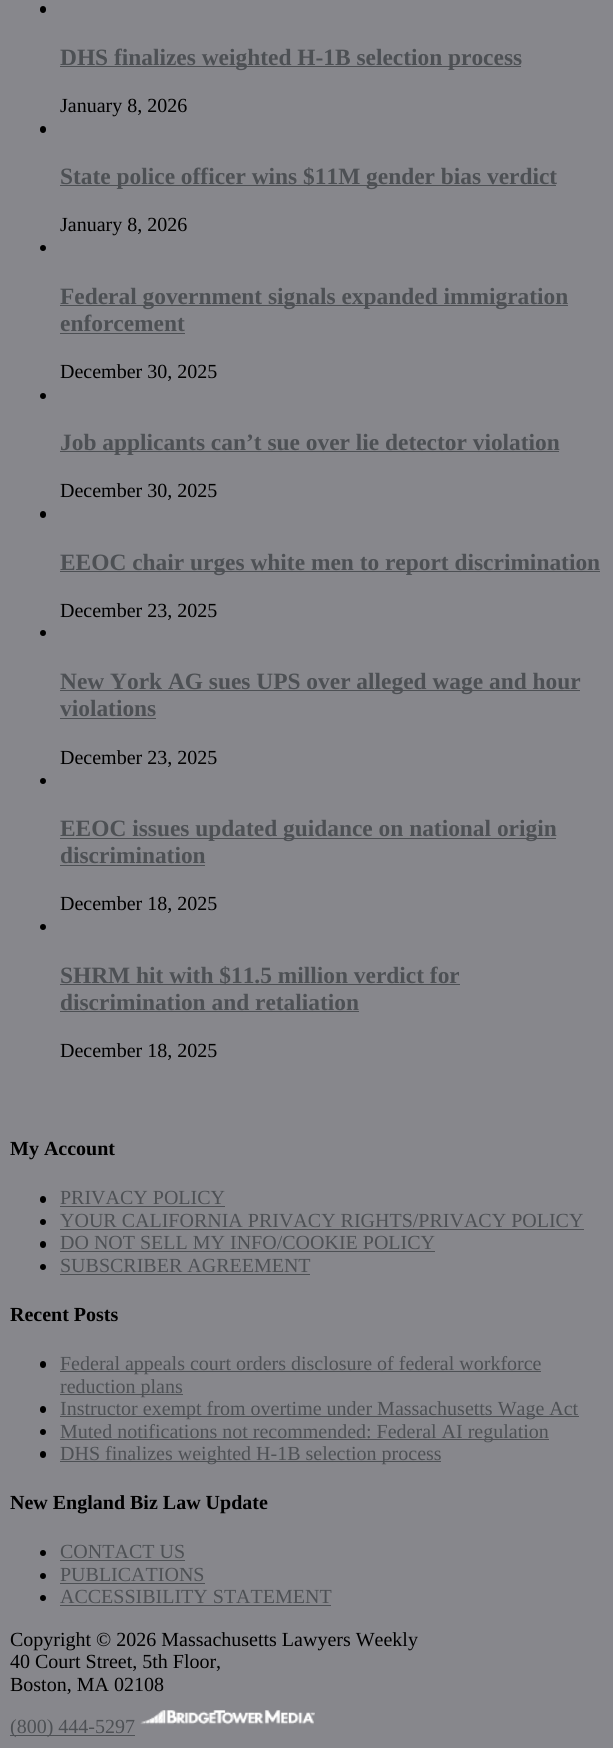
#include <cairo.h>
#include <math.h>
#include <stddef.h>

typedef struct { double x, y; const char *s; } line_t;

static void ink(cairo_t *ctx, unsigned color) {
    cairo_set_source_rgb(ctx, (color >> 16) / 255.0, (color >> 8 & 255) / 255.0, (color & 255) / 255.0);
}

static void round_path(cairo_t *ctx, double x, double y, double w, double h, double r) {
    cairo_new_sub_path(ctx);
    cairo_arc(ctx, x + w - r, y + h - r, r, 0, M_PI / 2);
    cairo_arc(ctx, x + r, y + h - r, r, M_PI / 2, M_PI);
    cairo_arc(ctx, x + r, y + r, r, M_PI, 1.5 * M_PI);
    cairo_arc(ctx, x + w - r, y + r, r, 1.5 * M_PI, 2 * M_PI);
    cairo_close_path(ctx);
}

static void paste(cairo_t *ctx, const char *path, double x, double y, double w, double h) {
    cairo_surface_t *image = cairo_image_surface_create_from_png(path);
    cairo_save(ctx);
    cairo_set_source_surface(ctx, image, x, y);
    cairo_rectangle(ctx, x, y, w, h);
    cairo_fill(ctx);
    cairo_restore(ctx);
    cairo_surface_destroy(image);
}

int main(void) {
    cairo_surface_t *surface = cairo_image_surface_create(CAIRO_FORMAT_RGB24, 613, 1748);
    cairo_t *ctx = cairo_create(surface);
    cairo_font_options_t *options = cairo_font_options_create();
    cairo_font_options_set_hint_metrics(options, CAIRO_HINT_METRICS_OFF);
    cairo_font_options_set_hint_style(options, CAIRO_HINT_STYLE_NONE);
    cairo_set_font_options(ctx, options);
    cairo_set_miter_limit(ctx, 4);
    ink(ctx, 0x87878C);
    cairo_paint(ctx);
    ink(ctx, 0x000000);
    round_path(ctx, 40, 6, 6, 7, 3);
    cairo_fill(ctx);
    ink(ctx, 0x4D5054);
    cairo_rectangle(ctx, 60, 66, 461, 1);
    cairo_fill(ctx);
    cairo_select_font_face(ctx, "Liberation Serif", CAIRO_FONT_SLANT_NORMAL, CAIRO_FONT_WEIGHT_BOLD);
    cairo_set_font_size(ctx, 23.4);
    cairo_move_to(ctx, 60, 65);
    cairo_show_text(ctx, "DHS finalizes weighted H-1B selection process");
    cairo_select_font_face(ctx, "Liberation Serif", CAIRO_FONT_SLANT_NORMAL, CAIRO_FONT_WEIGHT_NORMAL);
    cairo_set_font_size(ctx, 20);
    ink(ctx, 0x000000);
    cairo_move_to(ctx, 60, 112);
    cairo_show_text(ctx, "January 8, 2026");
    round_path(ctx, 40, 126, 6, 7, 3);
    cairo_fill(ctx);
    ink(ctx, 0x4D5054);
    cairo_rectangle(ctx, 60, 185, 496, 1);
    cairo_fill(ctx);
    cairo_select_font_face(ctx, "Liberation Serif", CAIRO_FONT_SLANT_NORMAL, CAIRO_FONT_WEIGHT_BOLD);
    cairo_set_font_size(ctx, 23.4);
    cairo_move_to(ctx, 60, 184);
    cairo_show_text(ctx, "State police officer wins $11M gender bias verdict");
    cairo_select_font_face(ctx, "Liberation Serif", CAIRO_FONT_SLANT_NORMAL, CAIRO_FONT_WEIGHT_NORMAL);
    cairo_set_font_size(ctx, 20);
    ink(ctx, 0x000000);
    cairo_move_to(ctx, 60, 231);
    cairo_show_text(ctx, "January 8, 2026");
    cairo_new_path(ctx);
    cairo_arc(ctx, 43, 248, 3, 0, 2 * M_PI);
    cairo_fill(ctx);
    ink(ctx, 0x4D5054);
    cairo_rectangle(ctx, 60, 305, 508, 1);
    cairo_fill(ctx);
    cairo_select_font_face(ctx, "Liberation Serif", CAIRO_FONT_SLANT_NORMAL, CAIRO_FONT_WEIGHT_BOLD);
    cairo_set_font_size(ctx, 23.4);
    cairo_move_to(ctx, 60, 304);
    cairo_show_text(ctx, "Federal government signals expanded immigration");
    cairo_move_to(ctx, 60, 331);
    cairo_show_text(ctx, "enforcement");
    cairo_rectangle(ctx, 60, 333, 125, 1);
    cairo_fill(ctx);
    cairo_select_font_face(ctx, "Liberation Serif", CAIRO_FONT_SLANT_NORMAL, CAIRO_FONT_WEIGHT_NORMAL);
    cairo_set_font_size(ctx, 20);
    ink(ctx, 0x000000);
    cairo_move_to(ctx, 60, 378);
    cairo_show_text(ctx, "December 30, 2025");
    cairo_new_path(ctx);
    cairo_arc(ctx, 43, 396, 3, 0, 2 * M_PI);
    cairo_fill(ctx);
    ink(ctx, 0x4D5054);
    cairo_rectangle(ctx, 60, 451, 499, 1);
    cairo_fill(ctx);
    cairo_select_font_face(ctx, "Liberation Serif", CAIRO_FONT_SLANT_NORMAL, CAIRO_FONT_WEIGHT_BOLD);
    cairo_set_font_size(ctx, 23.4);
    cairo_move_to(ctx, 60, 450);
    cairo_show_text(ctx, "Job applicants can’t sue over lie detector violation");
    cairo_select_font_face(ctx, "Liberation Serif", CAIRO_FONT_SLANT_NORMAL, CAIRO_FONT_WEIGHT_NORMAL);
    cairo_set_font_size(ctx, 20);
    ink(ctx, 0x000000);
    cairo_move_to(ctx, 60, 497);
    cairo_show_text(ctx, "December 30, 2025");
    round_path(ctx, 40, 511, 6, 7, 3);
    cairo_fill(ctx);
    ink(ctx, 0x4D5054);
    cairo_rectangle(ctx, 60, 571, 540, 1);
    cairo_fill(ctx);
    cairo_select_font_face(ctx, "Liberation Serif", CAIRO_FONT_SLANT_NORMAL, CAIRO_FONT_WEIGHT_BOLD);
    cairo_set_font_size(ctx, 23.4);
    cairo_move_to(ctx, 60, 570);
    cairo_show_text(ctx, "EEOC chair urges white men to report discrimination");
    cairo_select_font_face(ctx, "Liberation Serif", CAIRO_FONT_SLANT_NORMAL, CAIRO_FONT_WEIGHT_NORMAL);
    cairo_set_font_size(ctx, 20);
    ink(ctx, 0x000000);
    cairo_move_to(ctx, 60, 617);
    cairo_show_text(ctx, "December 23, 2025");
    cairo_new_path(ctx);
    cairo_arc(ctx, 43, 633, 3, 0, 2 * M_PI);
    cairo_fill(ctx);
    ink(ctx, 0x4D5054);
    cairo_rectangle(ctx, 60, 690, 520, 1);
    cairo_fill(ctx);
    cairo_select_font_face(ctx, "Liberation Serif", CAIRO_FONT_SLANT_NORMAL, CAIRO_FONT_WEIGHT_BOLD);
    cairo_set_font_size(ctx, 23.4);
    cairo_move_to(ctx, 60, 689);
    cairo_show_text(ctx, "New York AG sues UPS over alleged wage and hour");
    cairo_move_to(ctx, 60, 716);
    cairo_show_text(ctx, "violations");
    cairo_rectangle(ctx, 60, 718, 96, 1);
    cairo_fill(ctx);
    cairo_select_font_face(ctx, "Liberation Serif", CAIRO_FONT_SLANT_NORMAL, CAIRO_FONT_WEIGHT_NORMAL);
    cairo_set_font_size(ctx, 20);
    ink(ctx, 0x000000);
    cairo_move_to(ctx, 60, 764);
    cairo_show_text(ctx, "December 23, 2025");
    cairo_new_path(ctx);
    cairo_arc(ctx, 43, 781, 3, 0, 2 * M_PI);
    cairo_fill(ctx);
    ink(ctx, 0x4D5054);
    cairo_rectangle(ctx, 60, 838, 496, 1);
    cairo_fill(ctx);
    cairo_select_font_face(ctx, "Liberation Serif", CAIRO_FONT_SLANT_NORMAL, CAIRO_FONT_WEIGHT_BOLD);
    cairo_set_font_size(ctx, 23.4);
    cairo_move_to(ctx, 60, 836);
    cairo_show_text(ctx, "EEOC issues updated guidance on national origin");
    cairo_move_to(ctx, 60, 863);
    cairo_show_text(ctx, "discrimination");
    cairo_rectangle(ctx, 60, 865, 145, 1);
    cairo_fill(ctx);
    cairo_select_font_face(ctx, "Liberation Serif", CAIRO_FONT_SLANT_NORMAL, CAIRO_FONT_WEIGHT_NORMAL);
    cairo_set_font_size(ctx, 20);
    ink(ctx, 0x000000);
    cairo_move_to(ctx, 60, 910);
    cairo_show_text(ctx, "December 18, 2025");
    cairo_new_path(ctx);
    cairo_arc(ctx, 43, 927, 3, 0, 2 * M_PI);
    cairo_fill(ctx);
    ink(ctx, 0x4D5054);
    cairo_rectangle(ctx, 60, 984, 400, 1);
    cairo_fill(ctx);
    cairo_select_font_face(ctx, "Liberation Serif", CAIRO_FONT_SLANT_NORMAL, CAIRO_FONT_WEIGHT_BOLD);
    cairo_set_font_size(ctx, 23.4);
    cairo_move_to(ctx, 60, 983);
    cairo_show_text(ctx, "SHRM hit with $11.5 million verdict for");
    cairo_move_to(ctx, 60, 1010);
    cairo_show_text(ctx, "discrimination and retaliation");
    cairo_rectangle(ctx, 60, 1011, 299, 1);
    cairo_fill(ctx);
    cairo_select_font_face(ctx, "Liberation Serif", CAIRO_FONT_SLANT_NORMAL, CAIRO_FONT_WEIGHT_NORMAL);
    cairo_set_font_size(ctx, 20);
    ink(ctx, 0x000000);
    cairo_move_to(ctx, 60, 1057);
    cairo_show_text(ctx, "December 18, 2025");
    cairo_select_font_face(ctx, "Liberation Serif", CAIRO_FONT_SLANT_NORMAL, CAIRO_FONT_WEIGHT_BOLD);
    cairo_move_to(ctx, 10, 1155);
    cairo_show_text(ctx, "My Account");
    round_path(ctx, 40, 1196, 6, 7, 3);
    cairo_fill(ctx);
    cairo_select_font_face(ctx, "Liberation Serif", CAIRO_FONT_SLANT_NORMAL, CAIRO_FONT_WEIGHT_NORMAL);
    ink(ctx, 0x4D5054);
    cairo_move_to(ctx, 60, 1204);
    cairo_show_text(ctx, "PRIVACY POLICY");
    cairo_rectangle(ctx, 60, 1206, 165, 1);
    cairo_fill(ctx);
    ink(ctx, 0x000000);
    cairo_arc(ctx, 43, 1222, 3, 0, 2 * M_PI);
    cairo_fill(ctx);
    ink(ctx, 0x4D5054);
    cairo_move_to(ctx, 60, 1227);
    cairo_show_text(ctx, "YOUR CALIFORNIA PRIVACY RIGHTS/PRIVACY POLICY");
    cairo_rectangle(ctx, 60, 1229, 524, 1);
    cairo_fill(ctx);
    ink(ctx, 0x000000);
    round_path(ctx, 40, 1241, 6, 7, 3);
    cairo_fill(ctx);
    ink(ctx, 0x4D5054);
    cairo_move_to(ctx, 60, 1249);
    cairo_show_text(ctx, "DO NOT SELL MY INFO/COOKIE POLICY");
    cairo_rectangle(ctx, 60, 1251, 375, 1);
    cairo_fill(ctx);
    ink(ctx, 0x000000);
    cairo_arc(ctx, 43, 1267, 3, 0, 2 * M_PI);
    cairo_fill(ctx);
    ink(ctx, 0x4D5054);
    cairo_move_to(ctx, 60, 1272);
    cairo_show_text(ctx, "SUBSCRIBER AGREEMENT");
    cairo_rectangle(ctx, 60, 1274, 250, 1);
    cairo_fill(ctx);
    cairo_select_font_face(ctx, "Liberation Serif", CAIRO_FONT_SLANT_NORMAL, CAIRO_FONT_WEIGHT_BOLD);
    ink(ctx, 0x000000);
    cairo_move_to(ctx, 10, 1321);
    cairo_show_text(ctx, "Recent Posts");
    round_path(ctx, 40, 1361, 6, 7, 3);
    cairo_fill(ctx);
    ink(ctx, 0x4D5054);
    cairo_rectangle(ctx, 60, 1371, 481, 1);
    cairo_fill(ctx);
    cairo_select_font_face(ctx, "Liberation Serif", CAIRO_FONT_SLANT_NORMAL, CAIRO_FONT_WEIGHT_NORMAL);
    cairo_move_to(ctx, 60, 1370);
    cairo_show_text(ctx, "Federal appeals court orders disclosure of federal workforce");
    cairo_rectangle(ctx, 60, 1394, 123, 1);
    cairo_fill(ctx);
    cairo_move_to(ctx, 60, 1393);
    cairo_show_text(ctx, "reduction plans");
    ink(ctx, 0x000000);
    round_path(ctx, 40, 1406, 6, 7, 3);
    cairo_fill(ctx);
    ink(ctx, 0x4D5054);
    cairo_rectangle(ctx, 60, 1416, 519, 1);
    cairo_fill(ctx);
    cairo_move_to(ctx, 60, 1415);
    cairo_show_text(ctx, "Instructor exempt from overtime under Massachusetts Wage Act");
    ink(ctx, 0x000000);
    cairo_new_path(ctx);
    cairo_arc(ctx, 43, 1432, 3, 0, 2 * M_PI);
    cairo_fill(ctx);
    ink(ctx, 0x4D5054);
    cairo_rectangle(ctx, 60, 1439, 489, 1);
    cairo_fill(ctx);
    cairo_move_to(ctx, 60, 1438);
    cairo_show_text(ctx, "Muted notifications not recommended: Federal AI regulation");
    ink(ctx, 0x000000);
    round_path(ctx, 40, 1451, 6, 7, 3);
    cairo_fill(ctx);
    ink(ctx, 0x4D5054);
    cairo_rectangle(ctx, 60, 1461, 381, 1);
    cairo_fill(ctx);
    cairo_move_to(ctx, 60, 1460);
    cairo_show_text(ctx, "DHS finalizes weighted H-1B selection process");
    cairo_select_font_face(ctx, "Liberation Serif", CAIRO_FONT_SLANT_NORMAL, CAIRO_FONT_WEIGHT_BOLD);
    ink(ctx, 0x000000);
    cairo_move_to(ctx, 10, 1509);
    cairo_show_text(ctx, "New England Biz Law Update");
    cairo_new_path(ctx);
    cairo_arc(ctx, 43, 1553, 3, 0, 2 * M_PI);
    cairo_fill(ctx);
    cairo_select_font_face(ctx, "Liberation Serif", CAIRO_FONT_SLANT_NORMAL, CAIRO_FONT_WEIGHT_NORMAL);
    ink(ctx, 0x4D5054);
    cairo_move_to(ctx, 60, 1558);
    cairo_show_text(ctx, "CONTACT US");
    cairo_rectangle(ctx, 60, 1560, 125, 1);
    cairo_fill(ctx);
    ink(ctx, 0x000000);
    cairo_arc(ctx, 43, 1576, 3, 0, 2 * M_PI);
    cairo_fill(ctx);
    ink(ctx, 0x4D5054);
    cairo_move_to(ctx, 60, 1581);
    cairo_show_text(ctx, "PUBLICATIONS");
    cairo_rectangle(ctx, 60, 1583, 145, 1);
    cairo_fill(ctx);
    ink(ctx, 0x000000);
    cairo_arc(ctx, 43, 1598, 3, 0, 2 * M_PI);
    cairo_fill(ctx);
    ink(ctx, 0x4D5054);
    cairo_move_to(ctx, 60, 1603);
    cairo_show_text(ctx, "ACCESSIBILITY STATEMENT");
    cairo_rectangle(ctx, 60, 1605, 271, 1);
    cairo_fill(ctx);
    ink(ctx, 0x000000);
    {
        static const line_t items[] = {
            {10, 1646, "Copyright © 2026 Massachusetts Lawyers Weekly"},
            {10, 1668, "40 Court Street, 5th Floor,"},
            {10, 1691, "Boston, MA 02108"},
        };
        for (size_t i = 0; i < sizeof items / sizeof *items; i++) {
            cairo_move_to(ctx, items[i].x, items[i].y);
            cairo_show_text(ctx, items[i].s);
        }
    }
    paste(ctx, "media/1.png", 140, 1710, 175, 15);
    ink(ctx, 0x4D5054);
    cairo_rectangle(ctx, 10, 1735, 125, 1);
    cairo_fill(ctx);
    cairo_move_to(ctx, 10, 1733);
    cairo_show_text(ctx, "(800) 444-5297");
    cairo_surface_write_to_png(surface, "image.png");
    cairo_font_options_destroy(options);
    cairo_destroy(ctx);
    cairo_surface_destroy(surface);
    return 0;
}
